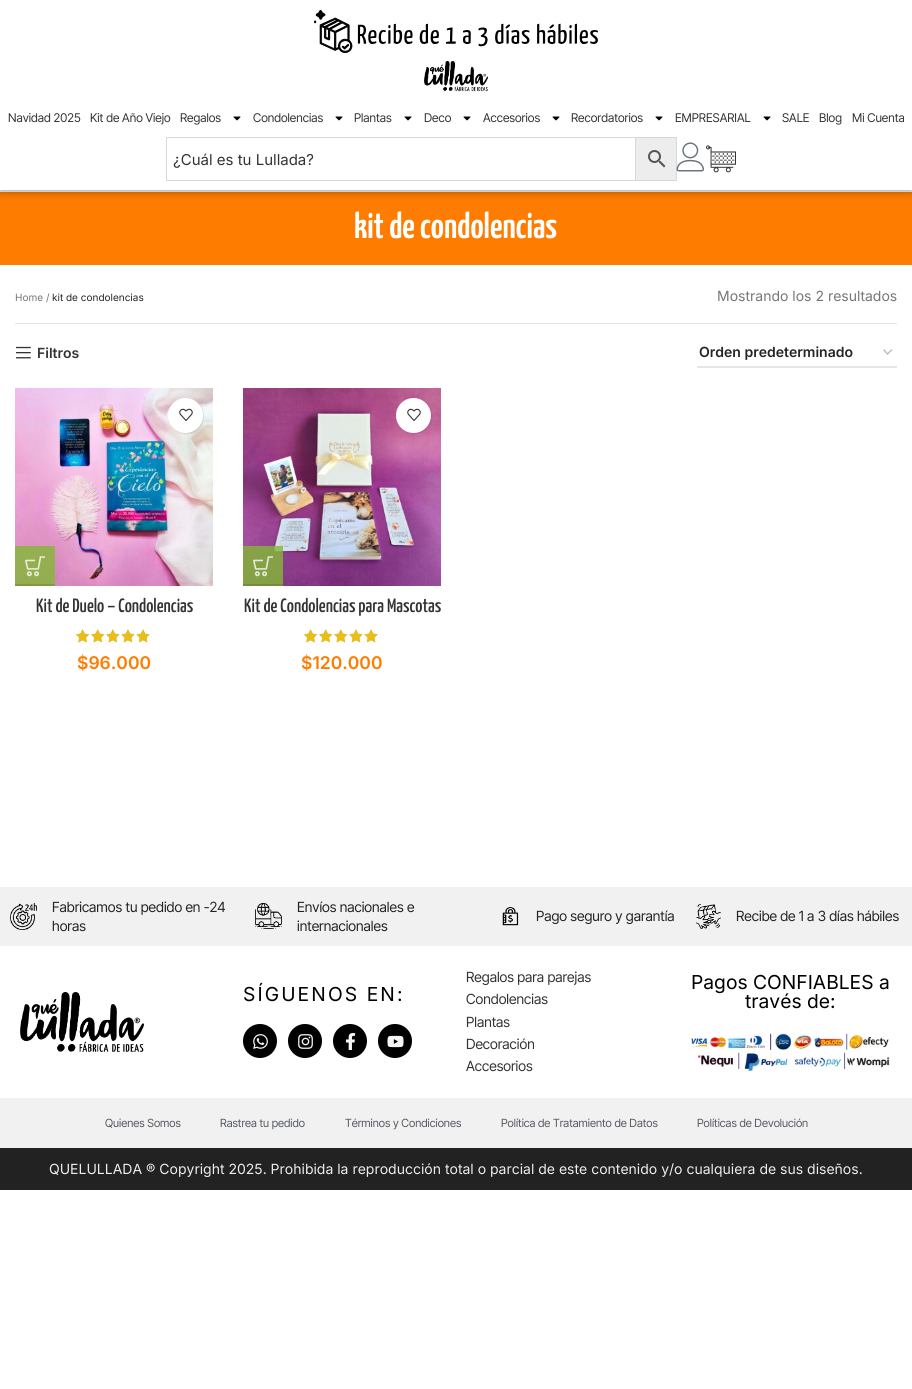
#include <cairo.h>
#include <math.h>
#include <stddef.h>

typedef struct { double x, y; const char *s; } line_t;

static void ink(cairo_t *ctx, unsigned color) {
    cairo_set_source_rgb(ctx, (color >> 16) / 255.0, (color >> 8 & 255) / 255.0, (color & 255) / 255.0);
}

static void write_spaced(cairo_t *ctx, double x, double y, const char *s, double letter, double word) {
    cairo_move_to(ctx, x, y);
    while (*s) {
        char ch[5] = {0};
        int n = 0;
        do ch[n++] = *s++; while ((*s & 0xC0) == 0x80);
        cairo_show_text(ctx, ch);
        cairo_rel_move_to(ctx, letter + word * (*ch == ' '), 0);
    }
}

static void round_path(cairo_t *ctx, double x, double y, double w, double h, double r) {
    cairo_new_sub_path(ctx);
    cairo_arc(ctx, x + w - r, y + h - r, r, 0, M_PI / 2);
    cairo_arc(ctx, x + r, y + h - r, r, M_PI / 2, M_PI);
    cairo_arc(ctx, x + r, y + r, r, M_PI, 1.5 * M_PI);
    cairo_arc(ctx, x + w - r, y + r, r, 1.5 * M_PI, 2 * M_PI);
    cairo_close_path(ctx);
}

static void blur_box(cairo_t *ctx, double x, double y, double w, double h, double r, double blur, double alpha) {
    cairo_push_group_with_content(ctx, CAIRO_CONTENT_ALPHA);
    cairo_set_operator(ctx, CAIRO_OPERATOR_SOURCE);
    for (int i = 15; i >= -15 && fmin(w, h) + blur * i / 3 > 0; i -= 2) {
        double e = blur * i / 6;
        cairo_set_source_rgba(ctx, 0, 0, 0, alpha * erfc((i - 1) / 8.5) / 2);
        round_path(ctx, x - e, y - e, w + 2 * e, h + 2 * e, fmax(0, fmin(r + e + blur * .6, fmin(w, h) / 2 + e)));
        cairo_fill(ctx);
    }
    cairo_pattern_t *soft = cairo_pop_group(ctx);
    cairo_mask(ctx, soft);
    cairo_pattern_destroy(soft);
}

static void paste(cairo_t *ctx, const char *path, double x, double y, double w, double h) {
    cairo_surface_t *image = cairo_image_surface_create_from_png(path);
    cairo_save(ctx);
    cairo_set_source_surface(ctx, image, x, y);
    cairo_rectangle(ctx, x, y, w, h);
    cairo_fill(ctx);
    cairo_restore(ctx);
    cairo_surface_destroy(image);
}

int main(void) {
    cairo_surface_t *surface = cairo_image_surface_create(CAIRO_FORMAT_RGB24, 912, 1389);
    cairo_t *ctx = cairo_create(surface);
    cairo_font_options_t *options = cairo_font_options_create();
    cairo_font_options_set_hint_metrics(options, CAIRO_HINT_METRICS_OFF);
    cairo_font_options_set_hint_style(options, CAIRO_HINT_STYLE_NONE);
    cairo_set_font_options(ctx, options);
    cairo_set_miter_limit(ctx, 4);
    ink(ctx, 0xFFFFFF);
    cairo_paint(ctx);
    ink(ctx, 0xFE7C00);
    cairo_rectangle(ctx, 0, 192, 912, 73);
    cairo_fill(ctx);
    cairo_save(ctx);
    cairo_rectangle(ctx, 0, 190, 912, 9);
    cairo_clip(ctx);
    ink(ctx, 0x000000);
    blur_box(ctx, 0, 0, 912, 190, 0, 5, 0.5);
    cairo_restore(ctx);
    paste(ctx, "media/1.png", 314, 10, 284, 43);
    paste(ctx, "media/2.png", 424, 61, 64, 31);
    cairo_select_font_face(ctx, "Inter Tight", CAIRO_FONT_SLANT_NORMAL, CAIRO_FONT_WEIGHT_NORMAL);
    cairo_set_font_size(ctx, 12);
    ink(ctx, 0x333333);
    {
        static const line_t items[] = {
            {8, 122, "Navidad 2025"},
            {90, 122, "Kit de Año Viejo"},
            {180, 122, "Regalos"},
        };
        for (size_t i = 0; i < sizeof items / sizeof *items; i++) {
            cairo_move_to(ctx, items[i].x, items[i].y);
            cairo_show_text(ctx, items[i].s);
        }
    }
    paste(ctx, "media/3.png", 233, 116, 8, 5);
    cairo_move_to(ctx, 253, 122);
    cairo_show_text(ctx, "Condolencias");
    paste(ctx, "media/3.png", 335, 116, 8, 5);
    cairo_move_to(ctx, 354, 122);
    cairo_show_text(ctx, "Plantas");
    paste(ctx, "media/3.png", 404, 116, 8, 5);
    cairo_move_to(ctx, 424, 122);
    cairo_show_text(ctx, "Deco");
    paste(ctx, "media/3.png", 463, 116, 8, 5);
    cairo_move_to(ctx, 483, 122);
    cairo_show_text(ctx, "Accesorios");
    paste(ctx, "media/3.png", 552, 116, 8, 5);
    cairo_move_to(ctx, 571, 122);
    cairo_show_text(ctx, "Recordatorios");
    paste(ctx, "media/3.png", 655, 116, 8, 5);
    cairo_move_to(ctx, 675, 122);
    cairo_show_text(ctx, "EMPRESARIAL");
    paste(ctx, "media/3.png", 763, 116, 8, 5);
    {
        static const line_t items[] = {
            {782, 122, "SALE"},
            {819, 122, "Blog"},
            {852, 122, "Mi Cuenta"},
        };
        for (size_t i = 0; i < sizeof items / sizeof *items; i++) {
            cairo_move_to(ctx, items[i].x, items[i].y);
            cairo_show_text(ctx, items[i].s);
        }
    }
    ink(ctx, 0xEDEDED);
    cairo_rectangle(ctx, 635.5, 137.5, 41, 43);
    cairo_fill_preserve(ctx);
    ink(ctx, 0xD8D8D8);
    cairo_set_line_width(ctx, 1);
    cairo_stroke(ctx);
    cairo_rectangle(ctx, 166.5, 137.5, 469, 43);
    cairo_stroke(ctx);
    cairo_select_font_face(ctx, "Inter", CAIRO_FONT_SLANT_NORMAL, CAIRO_FONT_WEIGHT_NORMAL);
    cairo_set_font_size(ctx, 15);
    ink(ctx, 0x333333);
    cairo_move_to(ctx, 173, 165);
    cairo_show_text(ctx, "¿Cuál es tu Lullada?");
    paste(ctx, "media/4.png", 648, 150, 18, 18);
    paste(ctx, "media/5.png", 676, 142, 28, 30);
    paste(ctx, "media/6.png", 706, 145, 30, 28);
    cairo_select_font_face(ctx, "Yanone Kaffeesatz SemiBold", CAIRO_FONT_SLANT_NORMAL, CAIRO_FONT_WEIGHT_NORMAL);
    cairo_set_font_size(ctx, 36);
    ink(ctx, 0xFFFFFF);
    cairo_move_to(ctx, 354, 238);
    cairo_show_text(ctx, "kit de condolencias");
    ink(ctx, 0xE4E4E4);
    cairo_rectangle(ctx, 15, 323, 882, 1);
    cairo_fill(ctx);
    cairo_select_font_face(ctx, "Inter", CAIRO_FONT_SLANT_NORMAL, CAIRO_FONT_WEIGHT_NORMAL);
    cairo_set_font_size(ctx, 10);
    ink(ctx, 0x767676);
    cairo_move_to(ctx, 15, 301);
    cairo_show_text(ctx, "Home");
    cairo_move_to(ctx, 46, 301);
    cairo_show_text(ctx, "/");
    ink(ctx, 0x242424);
    cairo_move_to(ctx, 52, 301);
    cairo_show_text(ctx, "kit de condolencias");
    cairo_set_font_size(ctx, 14);
    ink(ctx, 0x767676);
    cairo_move_to(ctx, 717, 301);
    cairo_show_text(ctx, "Mostrando los 2 resultados");
    paste(ctx, "media/7.png", 16, 346, 15, 13);
    cairo_select_font_face(ctx, "Inter SemiBold", CAIRO_FONT_SLANT_NORMAL, CAIRO_FONT_WEIGHT_NORMAL);
    ink(ctx, 0x333333);
    cairo_move_to(ctx, 37, 358);
    cairo_show_text(ctx, "Filtros");
    cairo_new_path(ctx);
    cairo_move_to(ctx, 883.5, 349.5);
    cairo_line_to(ctx, 887.5, 354);
    cairo_line_to(ctx, 892, 349.5);
    ink(ctx, 0xBBBBBB);
    cairo_set_line_width(ctx, 1.4);
    cairo_stroke(ctx);
    ink(ctx, 0xE6E6E6);
    cairo_rectangle(ctx, 697, 366, 200, 2);
    cairo_fill(ctx);
    ink(ctx, 0x242424);
    cairo_move_to(ctx, 699, 357);
    cairo_show_text(ctx, "Orden predeterminado");
    paste(ctx, "media/8.png", 15, 388, 198, 198);
    ink(ctx, 0x000000);
    blur_box(ctx, 169, 399, 35, 35, 17.5, 0.5, 0.1);
    ink(ctx, 0xFFFFFF);
    cairo_arc(ctx, 185.5, 415.5, 17.5, 0, 2 * M_PI);
    cairo_fill(ctx);
    paste(ctx, "media/9.png", 179, 408, 14, 13);
    cairo_set_source_rgba(ctx, 0.514, 0.718, 0.208, 0.8);
    cairo_rectangle(ctx, 15, 546, 40, 40);
    cairo_fill(ctx);
    cairo_set_source_rgba(ctx, 0, 0, 0, 0.12);
    cairo_rectangle(ctx, 15, 584, 40, 2);
    cairo_fill(ctx);
    paste(ctx, "media/10.png", 25, 556, 20, 21);
    cairo_select_font_face(ctx, "Yanone Kaffeesatz Medium", CAIRO_FONT_SLANT_NORMAL, CAIRO_FONT_WEIGHT_NORMAL);
    cairo_set_font_size(ctx, 19.25);
    ink(ctx, 0x333333);
    cairo_move_to(ctx, 36, 612);
    cairo_show_text(ctx, "Kit de Duelo – Condolencias");
    paste(ctx, "media/11.png", 76, 629, 74, 14);
    paste(ctx, "media/12.png", 76, 629, 74, 14);
    cairo_select_font_face(ctx, "Inter SemiBold", CAIRO_FONT_SLANT_NORMAL, CAIRO_FONT_WEIGHT_NORMAL);
    cairo_set_font_size(ctx, 17.5);
    ink(ctx, 0xFE7C00);
    cairo_move_to(ctx, 77, 669);
    cairo_show_text(ctx, "$96.000");
    paste(ctx, "media/13.png", 243, 388, 198, 198);
    ink(ctx, 0x000000);
    blur_box(ctx, 397, 399, 35, 35, 17.5, 0.5, 0.1);
    ink(ctx, 0xFFFFFF);
    cairo_arc(ctx, 413.5, 415.5, 17.5, 0, 2 * M_PI);
    cairo_fill(ctx);
    paste(ctx, "media/9.png", 407, 408, 14, 13);
    cairo_set_source_rgba(ctx, 0.514, 0.718, 0.208, 0.8);
    cairo_rectangle(ctx, 243, 546, 40, 40);
    cairo_fill(ctx);
    cairo_set_source_rgba(ctx, 0, 0, 0, 0.12);
    cairo_rectangle(ctx, 243, 584, 40, 2);
    cairo_fill(ctx);
    paste(ctx, "media/14.png", 253, 556, 20, 21);
    cairo_select_font_face(ctx, "Yanone Kaffeesatz Medium", CAIRO_FONT_SLANT_NORMAL, CAIRO_FONT_WEIGHT_NORMAL);
    cairo_set_font_size(ctx, 19.25);
    ink(ctx, 0x333333);
    cairo_move_to(ctx, 244, 612);
    cairo_show_text(ctx, "Kit de Condolencias para Mascotas");
    paste(ctx, "media/11.png", 304, 629, 74, 14);
    paste(ctx, "media/12.png", 304, 629, 74, 14);
    cairo_select_font_face(ctx, "Inter SemiBold", CAIRO_FONT_SLANT_NORMAL, CAIRO_FONT_WEIGHT_NORMAL);
    cairo_set_font_size(ctx, 17.5);
    ink(ctx, 0xFE7C00);
    cairo_move_to(ctx, 301, 669);
    cairo_show_text(ctx, "$120.000");
    ink(ctx, 0xF1F1F1);
    cairo_rectangle(ctx, 0, 887, 912, 59);
    cairo_fill(ctx);
    paste(ctx, "media/15.png", 10, 903, 27, 27);
    cairo_select_font_face(ctx, "Inter Tight", CAIRO_FONT_SLANT_NORMAL, CAIRO_FONT_WEIGHT_NORMAL);
    cairo_set_font_size(ctx, 14);
    ink(ctx, 0x242424);
    cairo_move_to(ctx, 52, 912);
    cairo_show_text(ctx, "Fabricamos tu pedido en -24");
    cairo_move_to(ctx, 52, 931);
    cairo_show_text(ctx, "horas");
    paste(ctx, "media/16.png", 255, 903, 27, 26);
    cairo_move_to(ctx, 297, 912);
    cairo_show_text(ctx, "Envíos nacionales e");
    cairo_move_to(ctx, 297, 931);
    cairo_show_text(ctx, "internacionales");
    paste(ctx, "media/17.png", 502, 907, 17, 19);
    cairo_move_to(ctx, 536, 921);
    cairo_show_text(ctx, "Pago seguro y garantía");
    paste(ctx, "media/18.png", 696, 904, 25, 25);
    cairo_move_to(ctx, 736, 921);
    cairo_show_text(ctx, "Recibe de 1 a 3 días hábiles");
    paste(ctx, "media/19.png", 20, 992, 124, 60);
    cairo_select_font_face(ctx, "Inter", CAIRO_FONT_SLANT_NORMAL, CAIRO_FONT_WEIGHT_NORMAL);
    cairo_set_font_size(ctx, 19.25);
    ink(ctx, 0x000000);
    write_spaced(ctx, 243, 1001, "SÍGUENOS EN:", 2.1, 0);
    cairo_new_path(ctx);
    cairo_arc(ctx, 260, 1041, 17, 0, 2 * M_PI);
    cairo_fill(ctx);
    paste(ctx, "media/20.png", 253, 1034, 15, 15);
    cairo_arc(ctx, 305, 1041, 17, 0, 2 * M_PI);
    cairo_fill(ctx);
    paste(ctx, "media/21.png", 298, 1034, 15, 15);
    cairo_arc(ctx, 350, 1041, 17, 0, 2 * M_PI);
    cairo_fill(ctx);
    paste(ctx, "media/22.png", 345, 1033, 11, 17);
    cairo_arc(ctx, 395, 1041, 17, 0, 2 * M_PI);
    cairo_fill(ctx);
    paste(ctx, "media/23.png", 387, 1035, 17, 13);
    cairo_select_font_face(ctx, "Inter Tight", CAIRO_FONT_SLANT_NORMAL, CAIRO_FONT_WEIGHT_NORMAL);
    cairo_set_font_size(ctx, 14);
    ink(ctx, 0x333333);
    {
        static const line_t items[] = {
            {466, 982, "Regalos para parejas"},
            {466, 1004, "Condolencias"},
            {466, 1027, "Plantas"},
            {466, 1049, "Decoración"},
            {466, 1071, "Accesorios"},
        };
        for (size_t i = 0; i < sizeof items / sizeof *items; i++) {
            cairo_move_to(ctx, items[i].x, items[i].y);
            cairo_show_text(ctx, items[i].s);
        }
    }
    cairo_select_font_face(ctx, "Inter", CAIRO_FONT_SLANT_NORMAL, CAIRO_FONT_WEIGHT_NORMAL);
    cairo_set_font_size(ctx, 19.25);
    ink(ctx, 0x000000);
    cairo_move_to(ctx, 691, 989);
    cairo_show_text(ctx, "Pagos CONFIABLES a");
    cairo_move_to(ctx, 745, 1008);
    cairo_show_text(ctx, "través de:");
    paste(ctx, "media/24.png", 689, 1032, 201, 39);
    ink(ctx, 0xF1F1F1);
    cairo_rectangle(ctx, 0, 1098, 912, 50);
    cairo_fill(ctx);
    cairo_select_font_face(ctx, "Inter Tight", CAIRO_FONT_SLANT_NORMAL, CAIRO_FONT_WEIGHT_NORMAL);
    cairo_set_font_size(ctx, 11.25);
    ink(ctx, 0x54595F);
    {
        static const line_t items[] = {
            {105, 1127, "Quienes Somos"},
            {220, 1127, "Rastrea tu pedido"},
            {345, 1127, "Términos y Condiciones"},
            {501, 1127, "Política de Tratamiento de Datos"},
            {697, 1127, "Políticas de Devolución"},
        };
        for (size_t i = 0; i < sizeof items / sizeof *items; i++) {
            cairo_move_to(ctx, items[i].x, items[i].y);
            cairo_show_text(ctx, items[i].s);
        }
    }
    ink(ctx, 0x222222);
    cairo_rectangle(ctx, 0, 1148, 912, 42);
    cairo_fill(ctx);
    cairo_select_font_face(ctx, "Inter", CAIRO_FONT_SLANT_NORMAL, CAIRO_FONT_WEIGHT_NORMAL);
    cairo_set_font_size(ctx, 14);
    ink(ctx, 0xECECEC);
    cairo_move_to(ctx, 49, 1174);
    cairo_show_text(ctx, "QUELULLADA ® Copyright 2025. Prohibida la reproducción total o parcial de este contenido y/o cualquiera de sus diseños.");
    cairo_surface_write_to_png(surface, "image.png");
    cairo_font_options_destroy(options);
    cairo_destroy(ctx);
    cairo_surface_destroy(surface);
    return 0;
}
